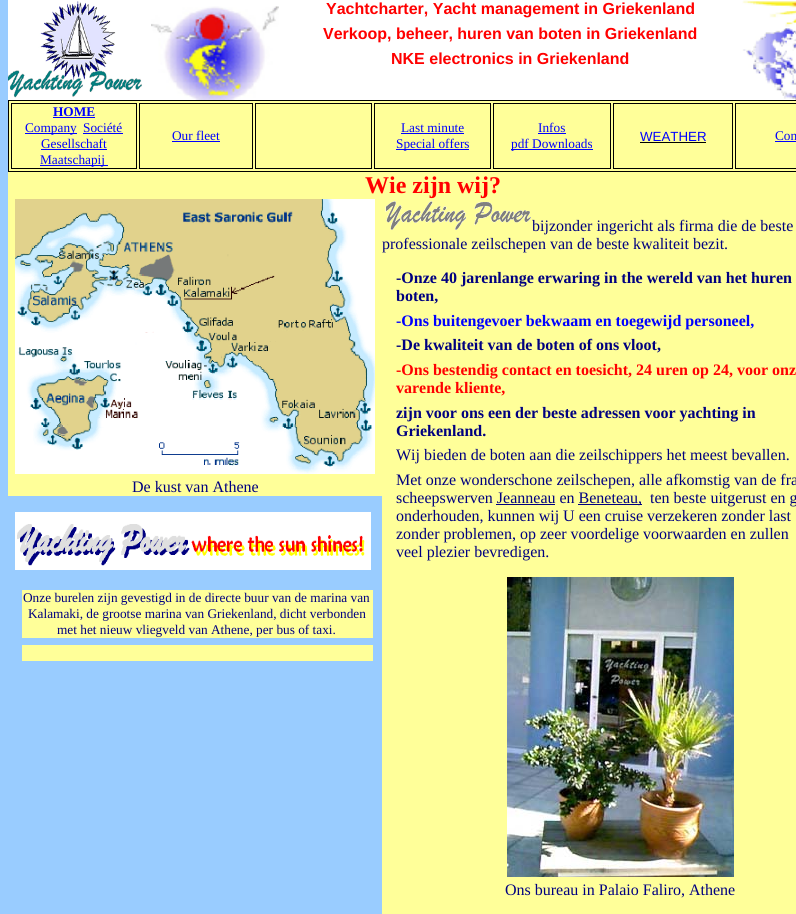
#include <cairo.h>
#include <math.h>
#include <stddef.h>

typedef struct { double x, y; const char *s; } line_t;

static void ink(cairo_t *ctx, unsigned color) {
    cairo_set_source_rgb(ctx, (color >> 16) / 255.0, (color >> 8 & 255) / 255.0, (color & 255) / 255.0);
}

static void paste(cairo_t *ctx, const char *path, double x, double y, double w, double h) {
    cairo_surface_t *image = cairo_image_surface_create_from_png(path);
    cairo_save(ctx);
    cairo_set_source_surface(ctx, image, x, y);
    cairo_rectangle(ctx, x, y, w, h);
    cairo_fill(ctx);
    cairo_restore(ctx);
    cairo_surface_destroy(image);
}

int main(void) {
    cairo_surface_t *surface = cairo_image_surface_create(CAIRO_FORMAT_RGB24, 796, 914);
    cairo_t *ctx = cairo_create(surface);
    cairo_font_options_t *options = cairo_font_options_create();
    cairo_font_options_set_hint_metrics(options, CAIRO_HINT_METRICS_OFF);
    cairo_font_options_set_hint_style(options, CAIRO_HINT_STYLE_NONE);
    cairo_set_font_options(ctx, options);
    cairo_set_miter_limit(ctx, 4);
    ink(ctx, 0x99CCFF);
    cairo_paint(ctx);
    ink(ctx, 0xFFFFFF);
    cairo_rectangle(ctx, 8, 0, 143, 100);
    cairo_fill(ctx);
    paste(ctx, "media/1.png", 8, 1, 134, 97);
    cairo_rectangle(ctx, 151, 0, 128, 6);
    cairo_fill(ctx);
    paste(ctx, "media/2.png", 151, 6, 128, 94);
    cairo_rectangle(ctx, 279, 0, 463, 100);
    cairo_fill(ctx);
    cairo_select_font_face(ctx, "Liberation Sans", CAIRO_FONT_SLANT_NORMAL, CAIRO_FONT_WEIGHT_BOLD);
    cairo_set_font_size(ctx, 16);
    ink(ctx, 0xFF0000);
    cairo_move_to(ctx, 326, 14);
    cairo_show_text(ctx, "Yachtcharter, Yacht management in Griekenland");
    paste(ctx, "media/3.png", 742, 0, 54, 100);
    cairo_move_to(ctx, 323, 39);
    cairo_show_text(ctx, "Verkoop, beheer, huren van boten in Griekenland");
    cairo_move_to(ctx, 391, 64);
    cairo_show_text(ctx, "NKE electronics in Griekenland");
    ink(ctx, 0xFFFF99);
    cairo_rectangle(ctx, 8.5, 100.5, 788, 71);
    cairo_fill_preserve(ctx);
    ink(ctx, 0x000000);
    cairo_set_line_width(ctx, 1);
    cairo_stroke(ctx);
    cairo_rectangle(ctx, 11.5, 103.5, 125, 65);
    cairo_stroke(ctx);
    cairo_select_font_face(ctx, "Liberation Serif", CAIRO_FONT_SLANT_NORMAL, CAIRO_FONT_WEIGHT_BOLD);
    cairo_set_font_size(ctx, 13.3);
    ink(ctx, 0x0000FF);
    cairo_move_to(ctx, 53, 116);
    cairo_show_text(ctx, "HOME");
    cairo_rectangle(ctx, 53, 117, 42, 1);
    cairo_fill(ctx);
    cairo_rectangle(ctx, 25, 133, 52, 1);
    cairo_fill(ctx);
    cairo_select_font_face(ctx, "Liberation Serif", CAIRO_FONT_SLANT_NORMAL, CAIRO_FONT_WEIGHT_NORMAL);
    cairo_move_to(ctx, 25, 132);
    cairo_show_text(ctx, "Company");
    cairo_move_to(ctx, 83, 132);
    cairo_show_text(ctx, "Société");
    cairo_rectangle(ctx, 83, 133, 40, 1);
    cairo_fill(ctx);
    cairo_move_to(ctx, 41, 148);
    cairo_show_text(ctx, "Gesellschaft");
    cairo_rectangle(ctx, 41, 149, 66, 1);
    cairo_fill(ctx);
    cairo_rectangle(ctx, 40, 165, 68, 1);
    cairo_fill(ctx);
    cairo_move_to(ctx, 40, 164);
    cairo_show_text(ctx, "Maatschapij");
    cairo_rectangle(ctx, 139.5, 103.5, 113, 65);
    ink(ctx, 0x000000);
    cairo_stroke(ctx);
    ink(ctx, 0x0000FF);
    cairo_move_to(ctx, 172, 140);
    cairo_show_text(ctx, "Our fleet");
    cairo_rectangle(ctx, 172, 141, 48, 1);
    cairo_fill(ctx);
    cairo_rectangle(ctx, 255.5, 103.5, 116, 65);
    ink(ctx, 0x000000);
    cairo_stroke(ctx);
    cairo_rectangle(ctx, 374.5, 103.5, 116, 65);
    cairo_stroke(ctx);
    ink(ctx, 0x0000FF);
    cairo_move_to(ctx, 401, 132);
    cairo_show_text(ctx, "Last minute");
    cairo_rectangle(ctx, 401, 133, 63, 1);
    cairo_fill(ctx);
    cairo_rectangle(ctx, 396, 149, 73, 1);
    cairo_fill(ctx);
    cairo_move_to(ctx, 396, 148);
    cairo_show_text(ctx, "Special offers");
    cairo_rectangle(ctx, 493.5, 103.5, 117, 65);
    ink(ctx, 0x000000);
    cairo_stroke(ctx);
    ink(ctx, 0x0000FF);
    cairo_move_to(ctx, 538, 132);
    cairo_show_text(ctx, "Infos");
    cairo_rectangle(ctx, 538, 133, 28, 1);
    cairo_fill(ctx);
    cairo_rectangle(ctx, 511, 149, 18, 1);
    cairo_fill(ctx);
    cairo_move_to(ctx, 511, 148);
    cairo_show_text(ctx, "pdf Downloads");
    cairo_rectangle(ctx, 529, 149, 64, 1);
    cairo_fill(ctx);
    cairo_rectangle(ctx, 613.5, 103.5, 119, 65);
    ink(ctx, 0x000000);
    cairo_stroke(ctx);
    cairo_select_font_face(ctx, "Liberation Sans", CAIRO_FONT_SLANT_NORMAL, CAIRO_FONT_WEIGHT_NORMAL);
    ink(ctx, 0x0000FF);
    cairo_move_to(ctx, 640, 141);
    cairo_show_text(ctx, "WEATHER");
    ink(ctx, 0x000000);
    cairo_rectangle(ctx, 640, 142, 66, 1);
    cairo_fill(ctx);
    cairo_rectangle(ctx, 735.5, 103.5, 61, 65);
    cairo_stroke(ctx);
    cairo_select_font_face(ctx, "Liberation Serif", CAIRO_FONT_SLANT_NORMAL, CAIRO_FONT_WEIGHT_NORMAL);
    ink(ctx, 0x0000FF);
    cairo_move_to(ctx, 775, 140);
    cairo_show_text(ctx, "Con");
    cairo_rectangle(ctx, 775, 141, 21, 1);
    cairo_fill(ctx);
    ink(ctx, 0xFFFF99);
    cairo_rectangle(ctx, 8, 172, 788, 27);
    cairo_fill(ctx);
    cairo_select_font_face(ctx, "Liberation Serif", CAIRO_FONT_SLANT_NORMAL, CAIRO_FONT_WEIGHT_BOLD);
    cairo_set_font_size(ctx, 24);
    ink(ctx, 0xFF0000);
    cairo_move_to(ctx, 365, 193);
    cairo_show_text(ctx, "Wie zijn wij?");
    ink(ctx, 0xFFFF99);
    cairo_rectangle(ctx, 8, 199, 374, 297);
    cairo_fill(ctx);
    paste(ctx, "media/4.png", 15, 199, 360, 275);
    cairo_select_font_face(ctx, "Liberation Serif", CAIRO_FONT_SLANT_NORMAL, CAIRO_FONT_WEIGHT_NORMAL);
    cairo_set_font_size(ctx, 16);
    ink(ctx, 0x000080);
    cairo_move_to(ctx, 132, 492);
    cairo_show_text(ctx, "De kust van Athene");
    paste(ctx, "media/5.png", 15, 512, 356, 58);
    ink(ctx, 0xFFFF99);
    cairo_rectangle(ctx, 22, 590, 351, 48);
    cairo_fill(ctx);
    cairo_set_font_size(ctx, 13.3);
    ink(ctx, 0x000080);
    {
        static const line_t items[] = {
            {23, 602, "Onze burelen zijn gevestigd in de directe buur van de marina van"},
            {28, 618, "Kalamaki, de grootse marina van Griekenland, dicht verbonden"},
            {57, 634, "met het nieuw vliegveld van Athene, per bus of taxi."},
        };
        for (size_t i = 0; i < sizeof items / sizeof *items; i++) {
            cairo_move_to(ctx, items[i].x, items[i].y);
            cairo_show_text(ctx, items[i].s);
        }
    }
    ink(ctx, 0xFFFF99);
    cairo_rectangle(ctx, 22, 645, 351, 16);
    cairo_fill(ctx);
    cairo_rectangle(ctx, 382, 199, 414, 715);
    cairo_fill(ctx);
    paste(ctx, "media/6.png", 385, 201, 146, 29);
    cairo_set_font_size(ctx, 16);
    ink(ctx, 0x000080);
    cairo_move_to(ctx, 532, 231);
    cairo_show_text(ctx, "bijzonder ingericht als firma die de beste");
    cairo_move_to(ctx, 382, 249);
    cairo_show_text(ctx, "professionale zeilschepen van de beste kwaliteit bezit.");
    cairo_select_font_face(ctx, "Liberation Serif", CAIRO_FONT_SLANT_NORMAL, CAIRO_FONT_WEIGHT_BOLD);
    cairo_move_to(ctx, 396, 283);
    cairo_show_text(ctx, "-Onze 40 jarenlange erwaring in the wereld van het huren");
    cairo_move_to(ctx, 396, 301);
    cairo_show_text(ctx, "boten,");
    ink(ctx, 0x0000FF);
    cairo_move_to(ctx, 396, 326);
    cairo_show_text(ctx, "-Ons buitengevoer bekwaam en toegewijd personeel,");
    ink(ctx, 0x000080);
    cairo_move_to(ctx, 396, 350);
    cairo_show_text(ctx, "-De kwaliteit van de boten of ons vloot,");
    ink(ctx, 0xFF0000);
    cairo_move_to(ctx, 396, 375);
    cairo_show_text(ctx, "-Ons bestendig contact en toesicht, 24 uren op 24, voor onz");
    cairo_move_to(ctx, 396, 393);
    cairo_show_text(ctx, "varende kliente,");
    ink(ctx, 0x000080);
    cairo_move_to(ctx, 396, 418);
    cairo_show_text(ctx, "zijn voor ons een der beste adressen voor yachting in");
    cairo_move_to(ctx, 396, 436);
    cairo_show_text(ctx, "Griekenland.");
    cairo_select_font_face(ctx, "Liberation Serif", CAIRO_FONT_SLANT_NORMAL, CAIRO_FONT_WEIGHT_NORMAL);
    {
        static const line_t items[] = {
            {396, 460, "Wij bieden de boten aan die zeilschippers het meest bevallen."},
            {396, 485, "Met onze wonderschone zeilschepen, alle afkomstig van de fra"},
            {396, 503, "scheepswerven Jeanneau en Beneteau"},
        };
        for (size_t i = 0; i < sizeof items / sizeof *items; i++) {
            cairo_move_to(ctx, items[i].x, items[i].y);
            cairo_show_text(ctx, items[i].s);
        }
    }
    cairo_rectangle(ctx, 496, 504, 59, 1);
    cairo_fill(ctx);
    cairo_rectangle(ctx, 578, 504, 64, 1);
    cairo_fill(ctx);
    {
        static const line_t items[] = {
            {638, 503, ","},
            {650, 503, "ten beste uitgerust en g"},
            {396, 521, "onderhouden, kunnen wij U een cruise verzekeren zonder last"},
            {396, 539, "zonder problemen, op zeer voordelige voorwaarden en zullen"},
            {396, 557, "veel plezier bevredigen."},
        };
        for (size_t i = 0; i < sizeof items / sizeof *items; i++) {
            cairo_move_to(ctx, items[i].x, items[i].y);
            cairo_show_text(ctx, items[i].s);
        }
    }
    paste(ctx, "media/7.png", 507, 577, 227, 300);
    cairo_move_to(ctx, 505, 895);
    cairo_show_text(ctx, "Ons bureau in Palaio Faliro, Athene");
    cairo_surface_write_to_png(surface, "image.png");
    cairo_font_options_destroy(options);
    cairo_destroy(ctx);
    cairo_surface_destroy(surface);
    return 0;
}
